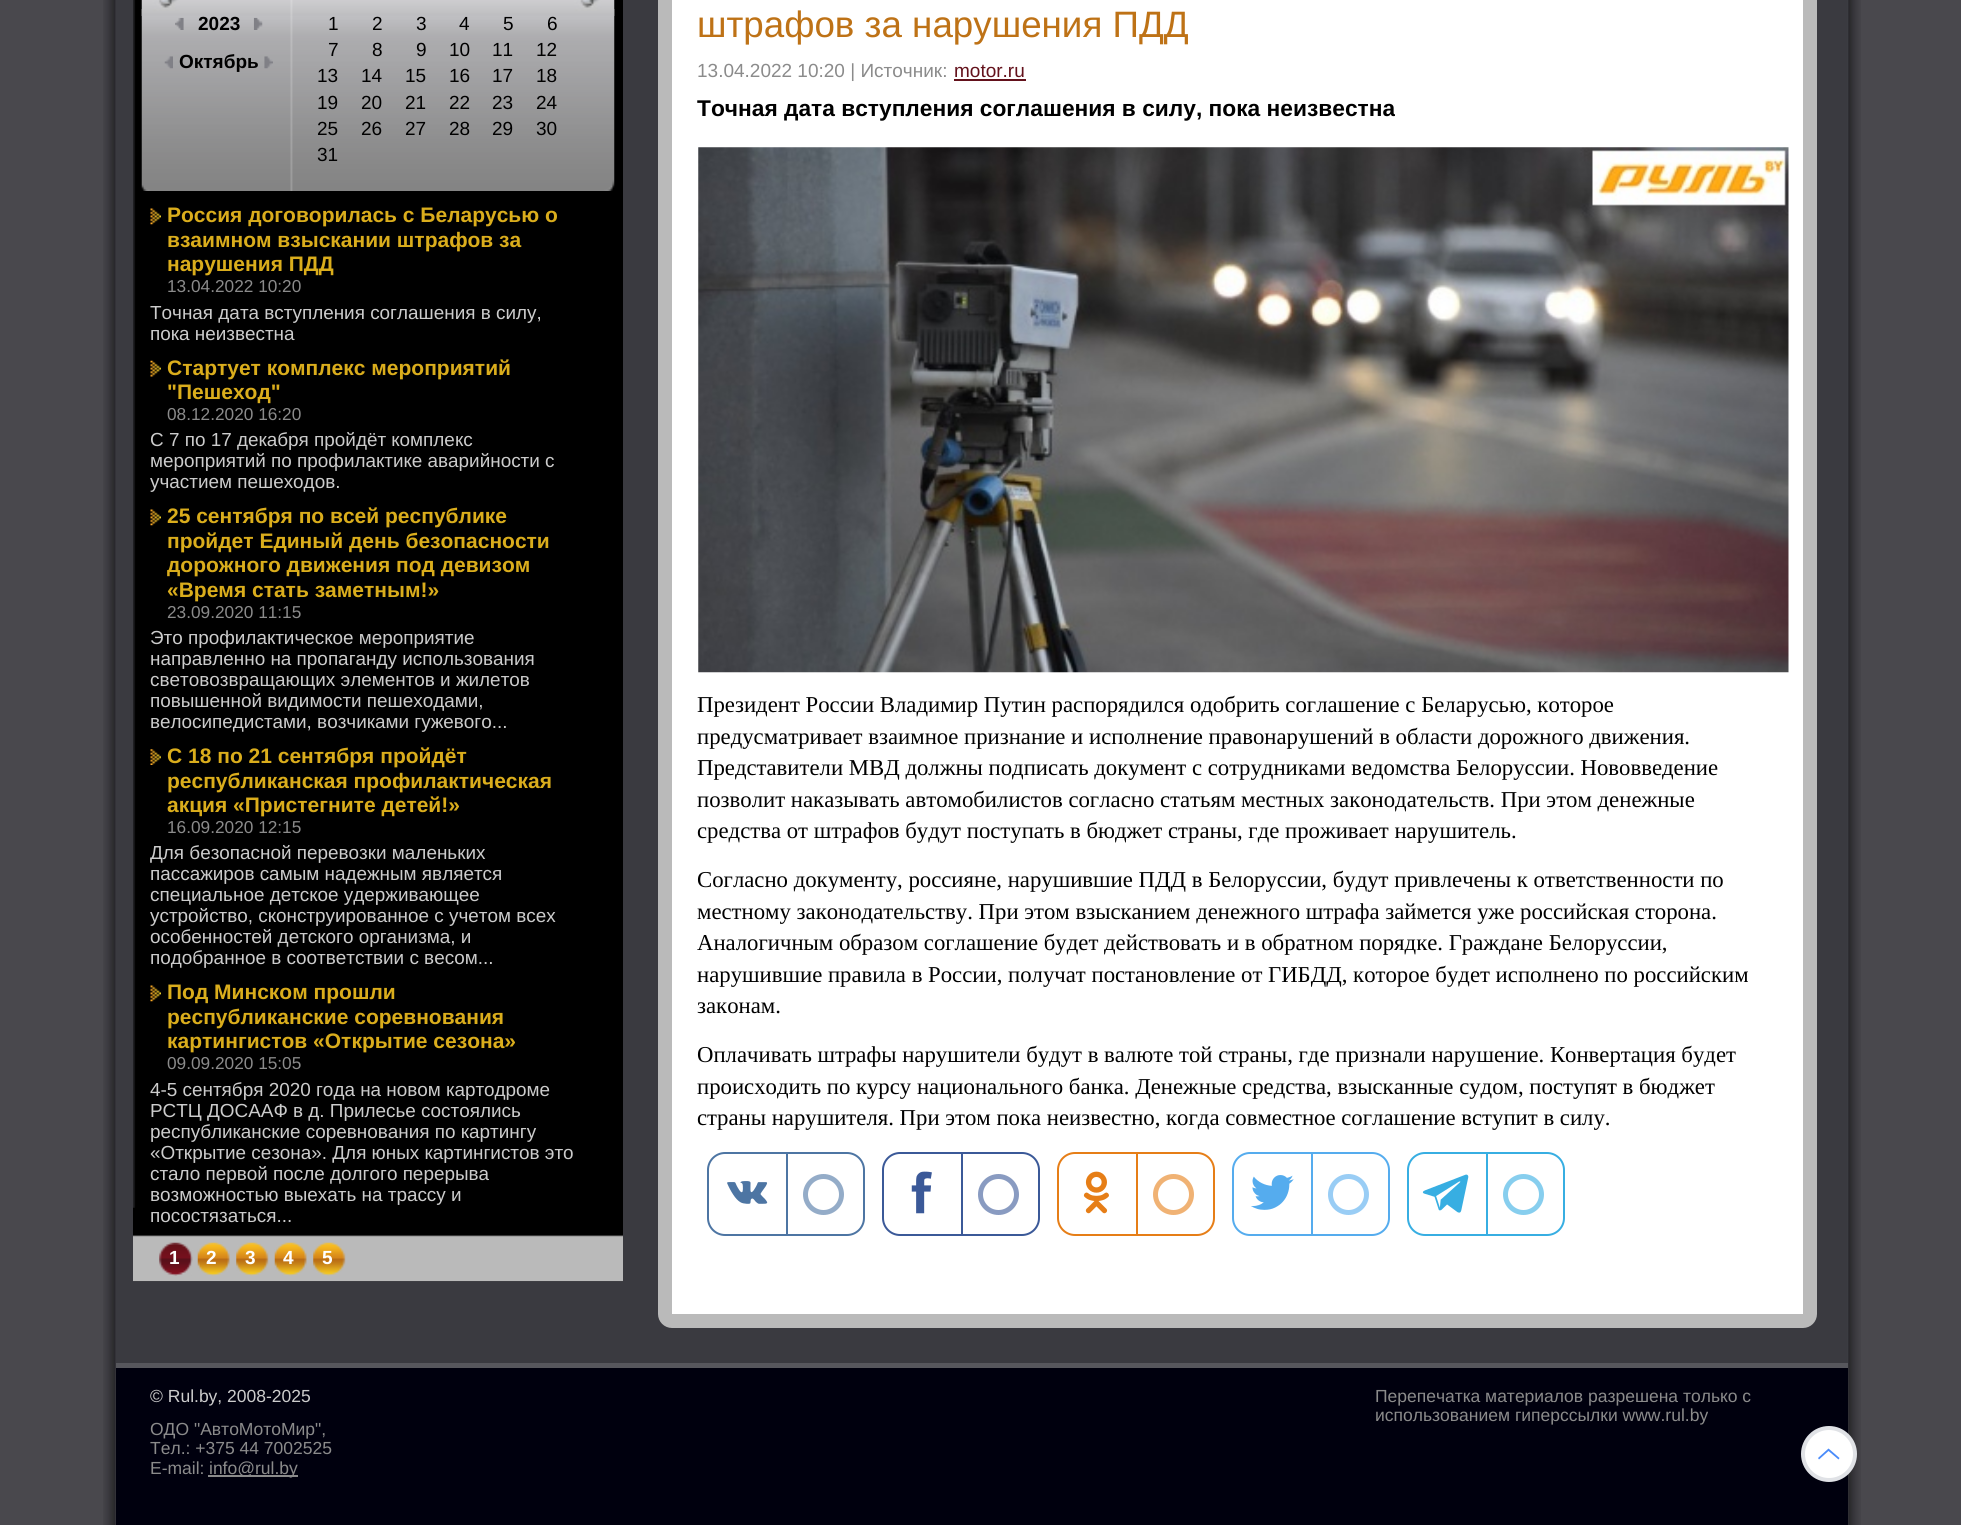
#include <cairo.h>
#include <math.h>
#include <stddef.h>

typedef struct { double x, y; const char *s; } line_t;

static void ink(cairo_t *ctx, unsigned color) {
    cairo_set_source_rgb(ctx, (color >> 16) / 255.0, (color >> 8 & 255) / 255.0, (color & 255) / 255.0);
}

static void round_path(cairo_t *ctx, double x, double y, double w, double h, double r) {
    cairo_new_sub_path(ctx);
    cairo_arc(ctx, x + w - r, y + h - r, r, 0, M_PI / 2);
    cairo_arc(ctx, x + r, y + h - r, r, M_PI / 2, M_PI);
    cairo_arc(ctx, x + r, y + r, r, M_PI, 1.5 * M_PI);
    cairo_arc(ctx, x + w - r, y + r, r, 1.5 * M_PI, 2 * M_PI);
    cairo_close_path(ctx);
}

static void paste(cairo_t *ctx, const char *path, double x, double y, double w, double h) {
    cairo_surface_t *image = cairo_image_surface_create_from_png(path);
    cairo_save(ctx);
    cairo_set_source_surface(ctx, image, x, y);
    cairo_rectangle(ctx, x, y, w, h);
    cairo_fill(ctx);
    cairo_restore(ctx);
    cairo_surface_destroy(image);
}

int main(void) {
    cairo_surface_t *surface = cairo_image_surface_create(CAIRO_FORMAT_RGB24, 1961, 1525);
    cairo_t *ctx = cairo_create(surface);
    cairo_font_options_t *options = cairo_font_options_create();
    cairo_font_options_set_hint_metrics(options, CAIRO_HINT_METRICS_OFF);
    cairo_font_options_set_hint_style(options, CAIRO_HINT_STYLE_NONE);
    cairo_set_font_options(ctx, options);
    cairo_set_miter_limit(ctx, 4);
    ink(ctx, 0x49484D);
    cairo_paint(ctx);
    paste(ctx, "media/1.png", 103, 1031, 1758, 494);
    paste(ctx, "media/2.png", 103, 0, 1758, 1031);
    ink(ctx, 0x3A3A40);
    cairo_rectangle(ctx, 116, 0, 1731, 1363);
    cairo_fill(ctx);
    paste(ctx, "media/3.png", 133, 0, 490, 1282);
    paste(ctx, "media/4.png", 133, 1207, 490, 75);
    paste(ctx, "media/5.png", 141, 9, 474, 182);
    paste(ctx, "media/6.png", 141, 0, 474, 16);
    paste(ctx, "media/7.png", 175, 17, 9, 13);
    cairo_select_font_face(ctx, "Liberation Sans", CAIRO_FONT_SLANT_NORMAL, CAIRO_FONT_WEIGHT_BOLD);
    cairo_set_font_size(ctx, 19);
    ink(ctx, 0x000000);
    cairo_move_to(ctx, 198, 30);
    cairo_show_text(ctx, "2023");
    paste(ctx, "media/8.png", 253, 17, 10, 13);
    paste(ctx, "media/9.png", 164, 56, 9, 13);
    cairo_move_to(ctx, 179, 68);
    cairo_show_text(ctx, "Октябрь");
    paste(ctx, "media/10.png", 264, 56, 9, 13);
    cairo_select_font_face(ctx, "Liberation Sans", CAIRO_FONT_SLANT_NORMAL, CAIRO_FONT_WEIGHT_NORMAL);
    {
        static const line_t items[] = {
            {328, 30, "1"},
            {372, 30, "2"},
            {416, 30, "3"},
            {459, 30, "4"},
            {503, 30, "5"},
            {547, 30, "6"},
            {328, 56, "7"},
            {372, 56, "8"},
            {416, 56, "9"},
            {449, 56, "10"},
            {492, 56, "11"},
            {536, 56, "12"},
            {317, 82, "13"},
            {361, 82, "14"},
            {405, 82, "15"},
            {449, 82, "16"},
            {492, 82, "17"},
            {536, 82, "18"},
            {317, 109, "19"},
            {361, 109, "20"},
            {405, 109, "21"},
            {449, 109, "22"},
            {492, 109, "23"},
            {536, 109, "24"},
            {317, 135, "25"},
            {361, 135, "26"},
            {405, 135, "27"},
            {449, 135, "28"},
            {492, 135, "29"},
            {536, 135, "30"},
            {317, 161, "31"},
        };
        for (size_t i = 0; i < sizeof items / sizeof *items; i++) {
            cairo_move_to(ctx, items[i].x, items[i].y);
            cairo_show_text(ctx, items[i].s);
        }
    }
    paste(ctx, "media/11.png", 150, 208, 11, 17);
    cairo_select_font_face(ctx, "Liberation Sans", CAIRO_FONT_SLANT_NORMAL, CAIRO_FONT_WEIGHT_BOLD);
    cairo_set_font_size(ctx, 21);
    ink(ctx, 0xDAAD1C);
    {
        static const line_t items[] = {
            {167, 222, "Россия договорилась с Беларусью о"},
            {167, 247, "взаимном взыскании штрафов за"},
            {167, 271, "нарушения ПДД"},
        };
        for (size_t i = 0; i < sizeof items / sizeof *items; i++) {
            cairo_move_to(ctx, items[i].x, items[i].y);
            cairo_show_text(ctx, items[i].s);
        }
    }
    cairo_select_font_face(ctx, "Liberation Sans", CAIRO_FONT_SLANT_NORMAL, CAIRO_FONT_WEIGHT_NORMAL);
    cairo_set_font_size(ctx, 17.25);
    ink(ctx, 0x8B8B8B);
    cairo_move_to(ctx, 167, 292);
    cairo_show_text(ctx, "13.04.2022 10:20");
    cairo_set_font_size(ctx, 18.9);
    ink(ctx, 0xCCCCCC);
    cairo_move_to(ctx, 150, 319);
    cairo_show_text(ctx, "Точная дата вступления соглашения в силу,");
    cairo_move_to(ctx, 150, 340);
    cairo_show_text(ctx, "пока неизвестна");
    paste(ctx, "media/12.png", 150, 360, 11, 17);
    cairo_select_font_face(ctx, "Liberation Sans", CAIRO_FONT_SLANT_NORMAL, CAIRO_FONT_WEIGHT_BOLD);
    cairo_set_font_size(ctx, 21);
    ink(ctx, 0xDAAD1C);
    cairo_move_to(ctx, 167, 375);
    cairo_show_text(ctx, "Стартует комплекс мероприятий");
    cairo_move_to(ctx, 167, 399);
    cairo_show_text(ctx, "\"Пешеход\"");
    cairo_select_font_face(ctx, "Liberation Sans", CAIRO_FONT_SLANT_NORMAL, CAIRO_FONT_WEIGHT_NORMAL);
    cairo_set_font_size(ctx, 17.25);
    ink(ctx, 0x8B8B8B);
    cairo_move_to(ctx, 167, 420);
    cairo_show_text(ctx, "08.12.2020 16:20");
    cairo_set_font_size(ctx, 18.9);
    ink(ctx, 0xCCCCCC);
    {
        static const line_t items[] = {
            {150, 446, "С 7 по 17 декабря пройдёт комплекс"},
            {150, 467, "мероприятий по профилактике аварийности с"},
            {150, 488, "участием пешеходов."},
        };
        for (size_t i = 0; i < sizeof items / sizeof *items; i++) {
            cairo_move_to(ctx, items[i].x, items[i].y);
            cairo_show_text(ctx, items[i].s);
        }
    }
    paste(ctx, "media/11.png", 150, 509, 11, 17);
    cairo_select_font_face(ctx, "Liberation Sans", CAIRO_FONT_SLANT_NORMAL, CAIRO_FONT_WEIGHT_BOLD);
    cairo_set_font_size(ctx, 21);
    ink(ctx, 0xDAAD1C);
    {
        static const line_t items[] = {
            {167, 523, "25 сентября по всей республике"},
            {167, 548, "пройдет Единый день безопасности"},
            {167, 572, "дорожного движения под девизом"},
            {167, 597, "«Время стать заметным!»"},
        };
        for (size_t i = 0; i < sizeof items / sizeof *items; i++) {
            cairo_move_to(ctx, items[i].x, items[i].y);
            cairo_show_text(ctx, items[i].s);
        }
    }
    cairo_select_font_face(ctx, "Liberation Sans", CAIRO_FONT_SLANT_NORMAL, CAIRO_FONT_WEIGHT_NORMAL);
    cairo_set_font_size(ctx, 17.25);
    ink(ctx, 0x8B8B8B);
    cairo_move_to(ctx, 167, 618);
    cairo_show_text(ctx, "23.09.2020 11:15");
    cairo_set_font_size(ctx, 18.9);
    ink(ctx, 0xCCCCCC);
    {
        static const line_t items[] = {
            {150, 644, "Это профилактическое мероприятие"},
            {150, 665, "направленно на пропаганду использования"},
            {150, 686, "световозвращающих элементов и жилетов"},
            {150, 707, "повышенной видимости пешеходами,"},
            {150, 728, "велосипедистами, возчиками гужевого..."},
        };
        for (size_t i = 0; i < sizeof items / sizeof *items; i++) {
            cairo_move_to(ctx, items[i].x, items[i].y);
            cairo_show_text(ctx, items[i].s);
        }
    }
    paste(ctx, "media/13.png", 150, 749, 11, 16);
    cairo_select_font_face(ctx, "Liberation Sans", CAIRO_FONT_SLANT_NORMAL, CAIRO_FONT_WEIGHT_BOLD);
    cairo_set_font_size(ctx, 21);
    ink(ctx, 0xDAAD1C);
    {
        static const line_t items[] = {
            {167, 763, "С 18 по 21 сентября пройдёт"},
            {167, 788, "республиканская профилактическая"},
            {167, 812, "акция «Пристегните детей!»"},
        };
        for (size_t i = 0; i < sizeof items / sizeof *items; i++) {
            cairo_move_to(ctx, items[i].x, items[i].y);
            cairo_show_text(ctx, items[i].s);
        }
    }
    cairo_select_font_face(ctx, "Liberation Sans", CAIRO_FONT_SLANT_NORMAL, CAIRO_FONT_WEIGHT_NORMAL);
    cairo_set_font_size(ctx, 17.25);
    ink(ctx, 0x8B8B8B);
    cairo_move_to(ctx, 167, 833);
    cairo_show_text(ctx, "16.09.2020 12:15");
    cairo_set_font_size(ctx, 18.9);
    ink(ctx, 0xCCCCCC);
    {
        static const line_t items[] = {
            {150, 859, "Для безопасной перевозки маленьких"},
            {150, 880, "пассажиров самым надежным является"},
            {150, 901, "специальное детское удерживающее"},
            {150, 922, "устройство, сконструированное с учетом всех"},
            {150, 943, "особенностей детского организма, и"},
            {150, 964, "подобранное в соответствии с весом..."},
        };
        for (size_t i = 0; i < sizeof items / sizeof *items; i++) {
            cairo_move_to(ctx, items[i].x, items[i].y);
            cairo_show_text(ctx, items[i].s);
        }
    }
    paste(ctx, "media/11.png", 150, 985, 11, 17);
    cairo_select_font_face(ctx, "Liberation Sans", CAIRO_FONT_SLANT_NORMAL, CAIRO_FONT_WEIGHT_BOLD);
    cairo_set_font_size(ctx, 21);
    ink(ctx, 0xDAAD1C);
    {
        static const line_t items[] = {
            {167, 999, "Под Минском прошли"},
            {167, 1024, "республиканские соревнования"},
            {167, 1048, "картингистов «Открытие сезона»"},
        };
        for (size_t i = 0; i < sizeof items / sizeof *items; i++) {
            cairo_move_to(ctx, items[i].x, items[i].y);
            cairo_show_text(ctx, items[i].s);
        }
    }
    cairo_select_font_face(ctx, "Liberation Sans", CAIRO_FONT_SLANT_NORMAL, CAIRO_FONT_WEIGHT_NORMAL);
    cairo_set_font_size(ctx, 17.25);
    ink(ctx, 0x8B8B8B);
    cairo_move_to(ctx, 167, 1069);
    cairo_show_text(ctx, "09.09.2020 15:05");
    cairo_set_font_size(ctx, 18.9);
    ink(ctx, 0xCCCCCC);
    {
        static const line_t items[] = {
            {150, 1096, "4-5 сентября 2020 года на новом картодроме"},
            {150, 1117, "РСТЦ ДОСААФ в д. Прилесье состоялись"},
            {150, 1138, "республиканские соревнования по картингу"},
            {150, 1159, "«Открытие сезона». Для юных картингистов это"},
            {150, 1180, "стало первой после долгого перерыва"},
            {150, 1201, "возможностью выехать на трассу и"},
            {150, 1222, "посостязаться..."},
        };
        for (size_t i = 0; i < sizeof items / sizeof *items; i++) {
            cairo_move_to(ctx, items[i].x, items[i].y);
            cairo_show_text(ctx, items[i].s);
        }
    }
    paste(ctx, "media/14.png", 159, 1242, 34, 34);
    cairo_select_font_face(ctx, "Liberation Sans", CAIRO_FONT_SLANT_NORMAL, CAIRO_FONT_WEIGHT_BOLD);
    cairo_set_font_size(ctx, 19);
    ink(ctx, 0xFFFFFF);
    cairo_move_to(ctx, 169, 1264);
    cairo_show_text(ctx, "1");
    paste(ctx, "media/15.png", 197, 1242, 33, 34);
    cairo_move_to(ctx, 206, 1264);
    cairo_show_text(ctx, "2");
    paste(ctx, "media/16.png", 236, 1242, 33, 34);
    cairo_move_to(ctx, 245, 1264);
    cairo_show_text(ctx, "3");
    paste(ctx, "media/17.png", 274, 1242, 33, 34);
    cairo_move_to(ctx, 283, 1264);
    cairo_show_text(ctx, "4");
    paste(ctx, "media/16.png", 313, 1242, 33, 34);
    cairo_move_to(ctx, 322, 1264);
    cairo_show_text(ctx, "5");
    round_path(ctx, 665, -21, 1145, 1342, 7);
    ink(ctx, 0xBABABA);
    cairo_set_line_width(ctx, 14);
    cairo_stroke(ctx);
    ink(ctx, 0xFFFFFF);
    cairo_rectangle(ctx, 672, 0, 1131, 1314);
    cairo_fill(ctx);
    cairo_select_font_face(ctx, "Liberation Sans", CAIRO_FONT_SLANT_NORMAL, CAIRO_FONT_WEIGHT_NORMAL);
    cairo_set_font_size(ctx, 36.75);
    ink(ctx, 0xBE7216);
    cairo_move_to(ctx, 697, 37);
    cairo_show_text(ctx, "штрафов за нарушения ПДД");
    cairo_set_font_size(ctx, 19);
    ink(ctx, 0x8B8B8B);
    cairo_move_to(ctx, 697, 77);
    cairo_show_text(ctx, "13.04.2022 10:20 | Источник:");
    ink(ctx, 0x63111B);
    cairo_move_to(ctx, 954, 77);
    cairo_show_text(ctx, "motor.ru");
    cairo_rectangle(ctx, 954, 79, 72, 2);
    cairo_fill(ctx);
    cairo_select_font_face(ctx, "Liberation Sans", CAIRO_FONT_SLANT_NORMAL, CAIRO_FONT_WEIGHT_BOLD);
    cairo_set_font_size(ctx, 22.75);
    ink(ctx, 0x000000);
    cairo_move_to(ctx, 697, 116);
    cairo_show_text(ctx, "Точная дата вступления соглашения в силу, пока неизвестна");
    paste(ctx, "media/18.png", 698, 147, 1091, 526);
    cairo_select_font_face(ctx, "Liberation Serif", CAIRO_FONT_SLANT_NORMAL, CAIRO_FONT_WEIGHT_NORMAL);
    {
        static const line_t items[] = {
            {697, 712, "Президент России Владимир Путин распорядился одобрить соглашение с Беларусью, которое"},
            {697, 744, "предусматривает взаимное признание и исполнение правонарушений в области дорожного движения."},
            {697, 775, "Представители МВД должны подписать документ с сотрудниками ведомства Белоруссии. Нововведение"},
            {697, 807, "позволит наказывать автомобилистов согласно статьям местных законодательств. При этом денежные"},
            {697, 838, "средства от штрафов будут поступать в бюджет страны, где проживает нарушитель."},
            {697, 887, "Согласно документу, россияне, нарушившие ПДД в Белоруссии, будут привлечены к ответственности по"},
            {697, 919, "местному законодательству. При этом взысканием денежного штрафа займется уже российская сторона."},
            {697, 950, "Аналогичным образом соглашение будет действовать и в обратном порядке. Граждане Белоруссии,"},
            {697, 982, "нарушившие правила в России, получат постановление от ГИБДД, которое будет исполнено по российским"},
            {697, 1013, "законам."},
            {697, 1062, "Оплачивать штрафы нарушители будут в валюте той страны, где признали нарушение. Конвертация будет"},
            {697, 1094, "происходить по курсу национального банка. Денежные средства, взысканные судом, поступят в бюджет"},
            {697, 1125, "страны нарушителя. При этом пока неизвестно, когда совместное соглашение вступит в силу."},
        };
        for (size_t i = 0; i < sizeof items / sizeof *items; i++) {
            cairo_move_to(ctx, items[i].x, items[i].y);
            cairo_show_text(ctx, items[i].s);
        }
    }
    round_path(ctx, 708, 1153, 156, 82, 17);
    ink(ctx, 0x4D75A3);
    cairo_set_line_width(ctx, 2);
    cairo_stroke(ctx);
    paste(ctx, "media/19.png", 727, 1181, 41, 23);
    cairo_rectangle(ctx, 786, 1153, 2, 81);
    cairo_fill(ctx);
    cairo_arc(ctx, 823.5, 1194.5, 18, 0, 2 * M_PI);
    ink(ctx, 0x94ACC8);
    cairo_set_line_width(ctx, 5);
    cairo_stroke(ctx);
    round_path(ctx, 883, 1153, 156, 82, 17);
    ink(ctx, 0x3B5998);
    cairo_set_line_width(ctx, 2);
    cairo_stroke(ctx);
    paste(ctx, "media/20.png", 911, 1171, 21, 43);
    cairo_rectangle(ctx, 961, 1153, 2, 81);
    cairo_fill(ctx);
    cairo_arc(ctx, 998.5, 1194.5, 18, 0, 2 * M_PI);
    ink(ctx, 0x899BC1);
    cairo_set_line_width(ctx, 5);
    cairo_stroke(ctx);
    round_path(ctx, 1058, 1153, 156, 82, 17);
    ink(ctx, 0xE67E17);
    cairo_set_line_width(ctx, 2);
    cairo_stroke(ctx);
    paste(ctx, "media/21.png", 1083, 1171, 26, 43);
    cairo_rectangle(ctx, 1136, 1153, 2, 81);
    cairo_fill(ctx);
    cairo_arc(ctx, 1173.5, 1194.5, 18, 0, 2 * M_PI);
    ink(ctx, 0xF0B274);
    cairo_set_line_width(ctx, 5);
    cairo_stroke(ctx);
    round_path(ctx, 1233, 1153, 156, 82, 17);
    ink(ctx, 0x55ACEE);
    cairo_set_line_width(ctx, 2);
    cairo_stroke(ctx);
    paste(ctx, "media/22.png", 1251, 1175, 43, 35);
    cairo_rectangle(ctx, 1311, 1153, 2, 81);
    cairo_fill(ctx);
    cairo_arc(ctx, 1348.5, 1194.5, 18, 0, 2 * M_PI);
    ink(ctx, 0x99CDF5);
    cairo_set_line_width(ctx, 5);
    cairo_stroke(ctx);
    round_path(ctx, 1408, 1153, 156, 82, 17);
    ink(ctx, 0x37AEE2);
    cairo_set_line_width(ctx, 2);
    cairo_stroke(ctx);
    paste(ctx, "media/23.png", 1422, 1174, 47, 39);
    cairo_rectangle(ctx, 1486, 1153, 2, 81);
    cairo_fill(ctx);
    cairo_arc(ctx, 1523.5, 1194.5, 18, 0, 2 * M_PI);
    ink(ctx, 0x87CEEE);
    cairo_set_line_width(ctx, 5);
    cairo_stroke(ctx);
    ink(ctx, 0x00000E);
    cairo_rectangle(ctx, 116, 1368, 1732, 157);
    cairo_fill(ctx);
    ink(ctx, 0xFFFFFF);
    cairo_arc(ctx, 1829, 1454, 26, 0, 2 * M_PI);
    cairo_fill_preserve(ctx);
    ink(ctx, 0xE0E2E6);
    cairo_set_line_width(ctx, 4);
    cairo_stroke(ctx);
    ink(ctx, 0x498BFA);
    cairo_new_path(ctx);
    cairo_move_to(ctx, 1838.5, 1459.5);
    cairo_line_to(ctx, 1828.5, 1451);
    cairo_line_to(ctx, 1819, 1459.5);
    cairo_line_to(ctx, 1818, 1458);
    cairo_line_to(ctx, 1828.5, 1448.5);
    cairo_line_to(ctx, 1839.5, 1458);
    cairo_close_path(ctx);
    cairo_fill(ctx);
    ink(ctx, 0x57575D);
    cairo_rectangle(ctx, 116, 1363, 1732, 5);
    cairo_fill(ctx);
    cairo_select_font_face(ctx, "Liberation Sans", CAIRO_FONT_SLANT_NORMAL, CAIRO_FONT_WEIGHT_NORMAL);
    cairo_set_font_size(ctx, 17.5);
    ink(ctx, 0xCCCCCC);
    cairo_move_to(ctx, 150, 1402);
    cairo_show_text(ctx, "© Rul.by, 2008-2025");
    ink(ctx, 0x8B8B8B);
    {
        static const line_t items[] = {
            {150, 1435, "ОДО \"АвтоМотоМир\","},
            {150, 1454, "Тел.: +375 44 7002525"},
            {150, 1474, "E-mail:"},
        };
        for (size_t i = 0; i < sizeof items / sizeof *items; i++) {
            cairo_move_to(ctx, items[i].x, items[i].y);
            cairo_show_text(ctx, items[i].s);
        }
    }
    cairo_rectangle(ctx, 208, 1475, 90, 2);
    cairo_fill(ctx);
    {
        static const line_t items[] = {
            {209, 1474, "info@rul.by"},
            {1375, 1402, "Перепечатка материалов разрешена только с"},
            {1375, 1421, "использованием гиперссылки www.rul.by"},
        };
        for (size_t i = 0; i < sizeof items / sizeof *items; i++) {
            cairo_move_to(ctx, items[i].x, items[i].y);
            cairo_show_text(ctx, items[i].s);
        }
    }
    cairo_surface_write_to_png(surface, "image.png");
    cairo_font_options_destroy(options);
    cairo_destroy(ctx);
    cairo_surface_destroy(surface);
    return 0;
}
